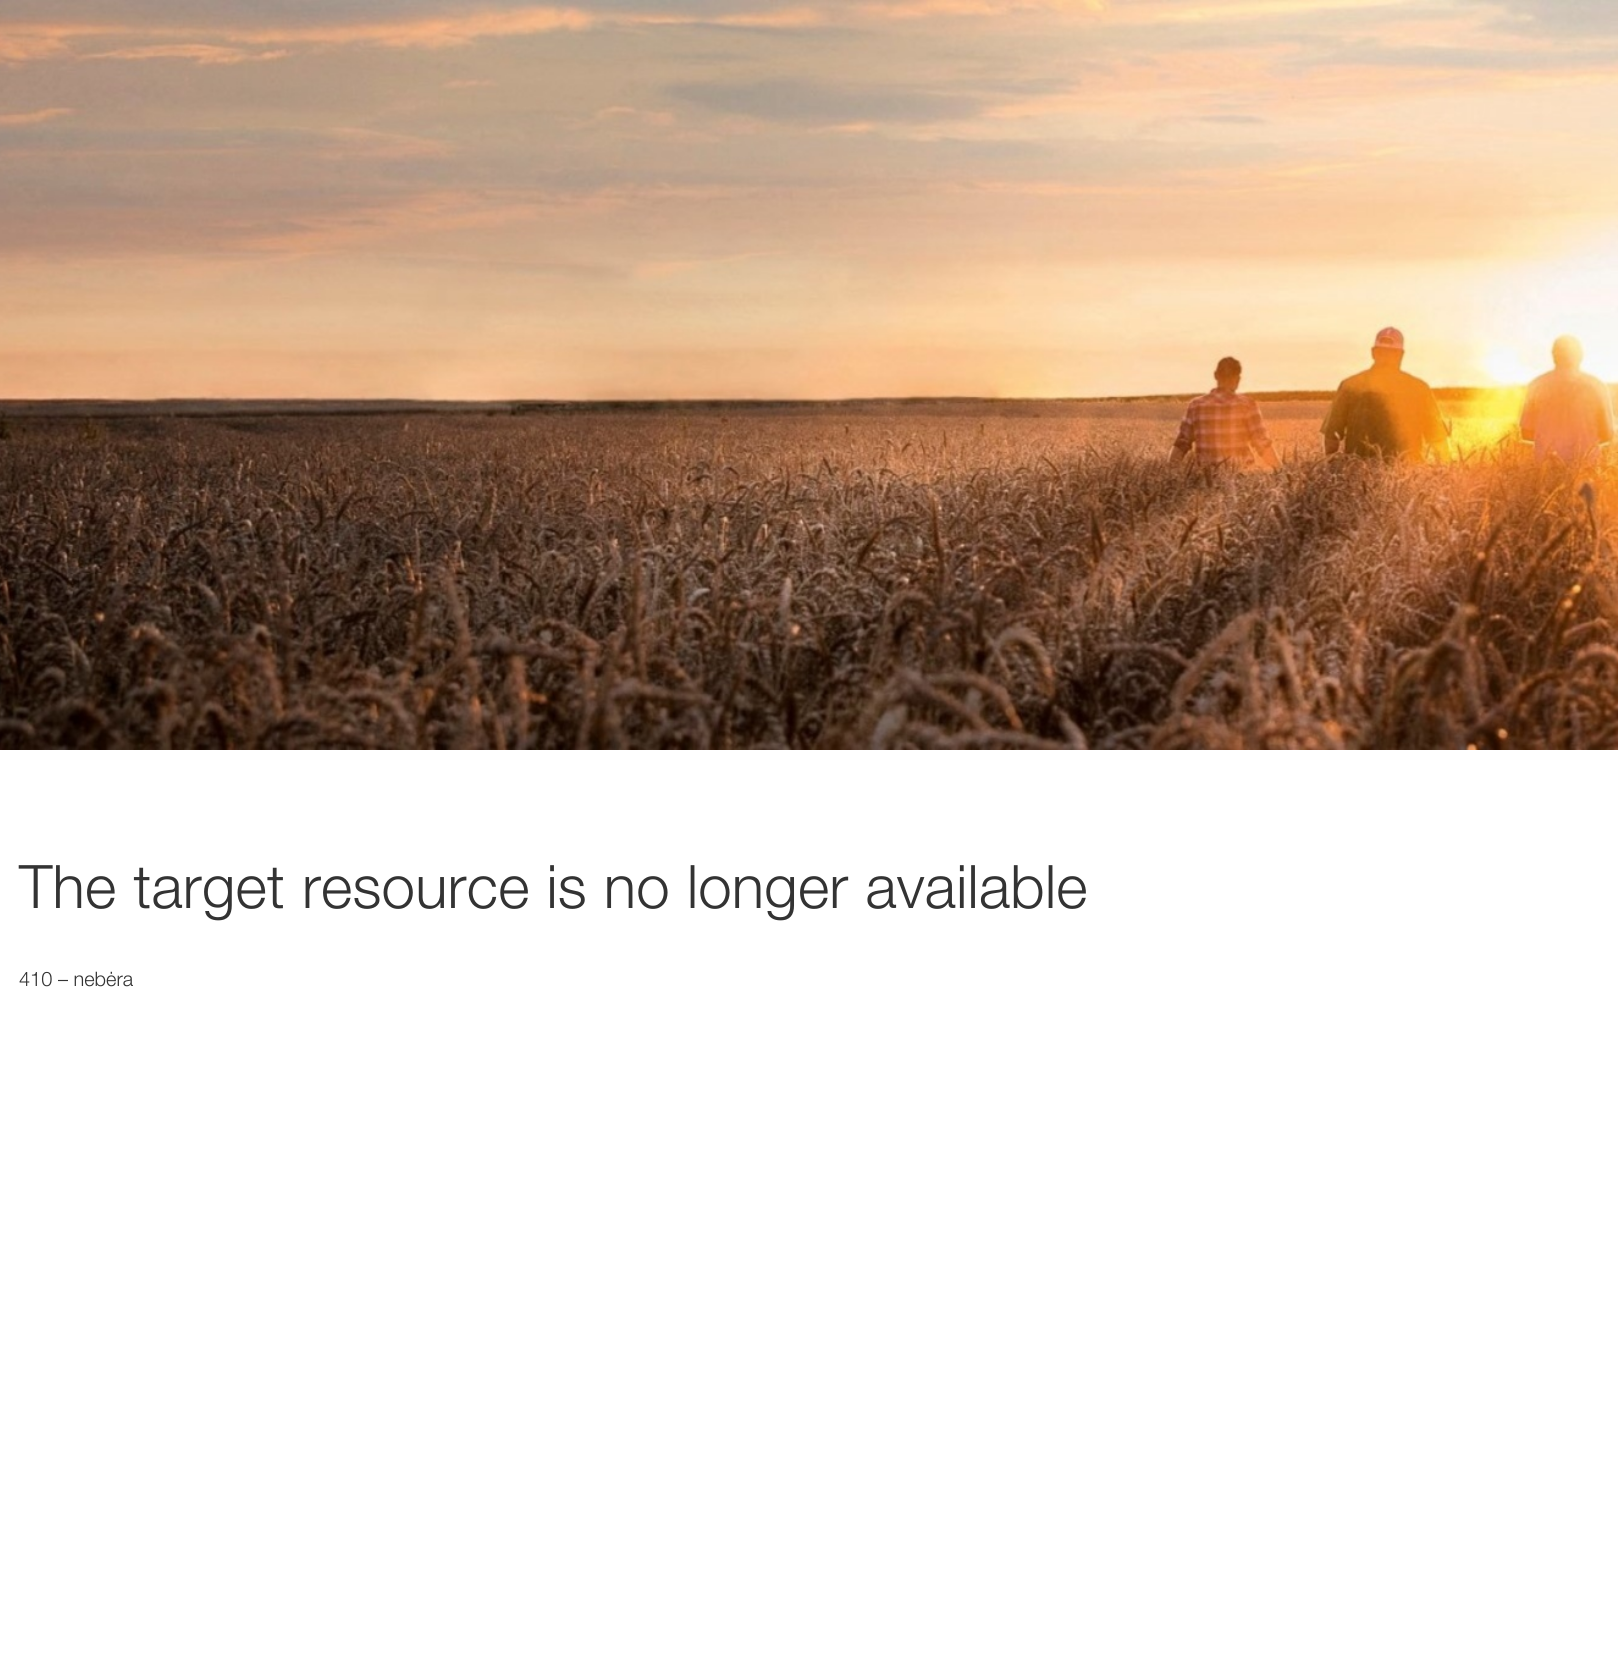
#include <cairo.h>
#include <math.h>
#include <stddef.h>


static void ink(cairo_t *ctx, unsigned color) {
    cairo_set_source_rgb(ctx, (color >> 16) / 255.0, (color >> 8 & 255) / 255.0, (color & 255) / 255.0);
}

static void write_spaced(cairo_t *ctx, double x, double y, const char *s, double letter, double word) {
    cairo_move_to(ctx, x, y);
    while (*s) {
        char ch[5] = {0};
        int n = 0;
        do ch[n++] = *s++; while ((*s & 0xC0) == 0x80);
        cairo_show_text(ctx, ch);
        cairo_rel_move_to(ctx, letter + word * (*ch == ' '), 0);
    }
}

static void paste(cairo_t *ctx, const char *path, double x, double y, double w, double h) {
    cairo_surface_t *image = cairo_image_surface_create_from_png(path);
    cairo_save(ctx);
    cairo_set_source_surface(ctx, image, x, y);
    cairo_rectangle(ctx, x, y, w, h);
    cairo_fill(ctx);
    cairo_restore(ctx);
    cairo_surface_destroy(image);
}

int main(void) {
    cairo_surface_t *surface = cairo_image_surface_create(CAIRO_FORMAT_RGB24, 1618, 1670);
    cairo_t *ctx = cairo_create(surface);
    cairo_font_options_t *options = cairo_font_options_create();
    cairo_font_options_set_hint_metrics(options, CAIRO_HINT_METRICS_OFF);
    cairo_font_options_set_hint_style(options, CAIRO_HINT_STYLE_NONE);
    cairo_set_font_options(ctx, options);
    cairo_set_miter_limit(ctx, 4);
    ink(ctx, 0xFFFFFF);
    cairo_paint(ctx);
    paste(ctx, "media/1.png", 0, 0, 1618, 750);
    cairo_select_font_face(ctx, "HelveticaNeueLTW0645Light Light", CAIRO_FONT_SLANT_NORMAL, CAIRO_FONT_WEIGHT_NORMAL);
    cairo_set_font_size(ctx, 60);
    ink(ctx, 0x333333);
    write_spaced(ctx, 19, 908, "The target resource is no longer available", 0.25, 0);
    cairo_set_font_size(ctx, 20);
    cairo_move_to(ctx, 19, 986);
    cairo_show_text(ctx, "410 – nebėra");
    cairo_surface_write_to_png(surface, "image.png");
    cairo_font_options_destroy(options);
    cairo_destroy(ctx);
    cairo_surface_destroy(surface);
    return 0;
}
